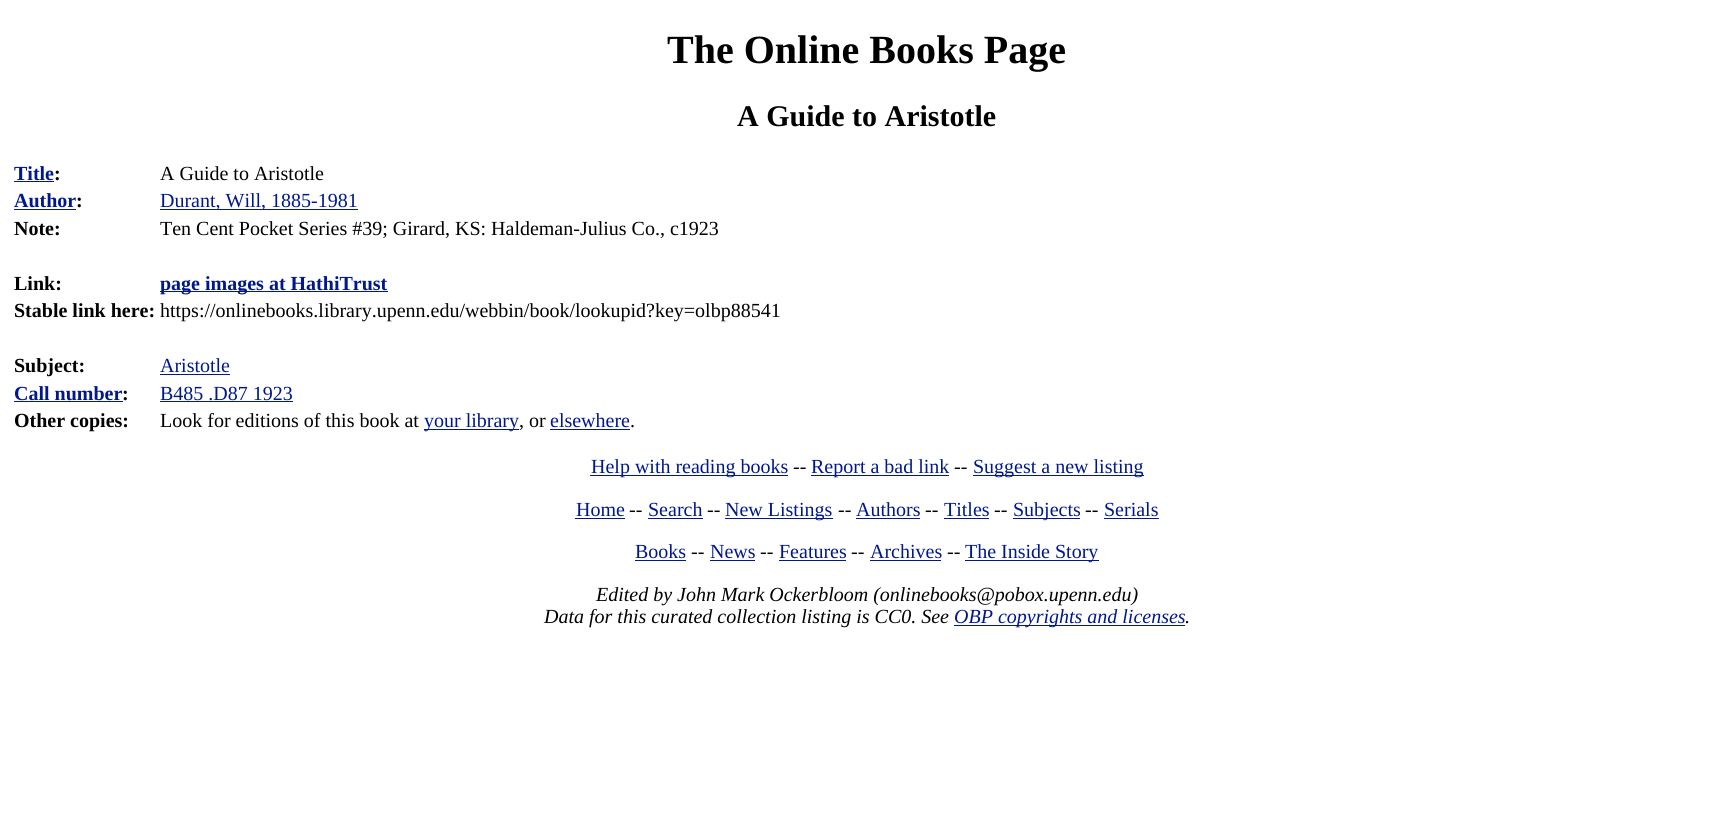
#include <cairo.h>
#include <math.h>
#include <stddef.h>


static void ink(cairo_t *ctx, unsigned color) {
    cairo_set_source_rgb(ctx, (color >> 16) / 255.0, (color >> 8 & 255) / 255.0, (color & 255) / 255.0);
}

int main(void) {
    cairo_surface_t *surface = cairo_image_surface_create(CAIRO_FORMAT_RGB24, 1733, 821);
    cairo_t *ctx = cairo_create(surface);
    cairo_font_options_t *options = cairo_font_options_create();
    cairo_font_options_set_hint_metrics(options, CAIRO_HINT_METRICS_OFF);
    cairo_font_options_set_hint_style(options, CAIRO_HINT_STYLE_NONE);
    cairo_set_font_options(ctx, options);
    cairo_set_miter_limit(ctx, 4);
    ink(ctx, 0xFFFFFF);
    cairo_paint(ctx);
    cairo_select_font_face(ctx, "Liberation Serif", CAIRO_FONT_SLANT_NORMAL, CAIRO_FONT_WEIGHT_BOLD);
    cairo_set_font_size(ctx, 40);
    ink(ctx, 0x000000);
    cairo_move_to(ctx, 667, 63);
    cairo_show_text(ctx, "The Online Books Page");
    cairo_set_font_size(ctx, 30);
    cairo_move_to(ctx, 737, 126);
    cairo_show_text(ctx, "A Guide to Aristotle");
    cairo_set_font_size(ctx, 20);
    ink(ctx, 0x00188C);
    cairo_move_to(ctx, 14, 180);
    cairo_show_text(ctx, "Title");
    ink(ctx, 0x000000);
    cairo_move_to(ctx, 54, 180);
    cairo_show_text(ctx, ":");
    ink(ctx, 0x00188C);
    cairo_rectangle(ctx, 14, 181, 40, 1);
    cairo_fill(ctx);
    cairo_select_font_face(ctx, "Liberation Serif", CAIRO_FONT_SLANT_NORMAL, CAIRO_FONT_WEIGHT_NORMAL);
    ink(ctx, 0x000000);
    cairo_move_to(ctx, 160, 180);
    cairo_show_text(ctx, "A Guide to Aristotle");
    cairo_select_font_face(ctx, "Liberation Serif", CAIRO_FONT_SLANT_NORMAL, CAIRO_FONT_WEIGHT_BOLD);
    ink(ctx, 0x00188C);
    cairo_move_to(ctx, 14, 207);
    cairo_show_text(ctx, "Author");
    ink(ctx, 0x000000);
    cairo_move_to(ctx, 76, 207);
    cairo_show_text(ctx, ":");
    ink(ctx, 0x00188C);
    cairo_rectangle(ctx, 14, 209, 62, 1);
    cairo_fill(ctx);
    cairo_rectangle(ctx, 160, 209, 198, 1);
    cairo_fill(ctx);
    cairo_select_font_face(ctx, "Liberation Serif", CAIRO_FONT_SLANT_NORMAL, CAIRO_FONT_WEIGHT_NORMAL);
    cairo_move_to(ctx, 160, 207);
    cairo_show_text(ctx, "Durant, Will, 1885-1981");
    cairo_select_font_face(ctx, "Liberation Serif", CAIRO_FONT_SLANT_NORMAL, CAIRO_FONT_WEIGHT_BOLD);
    ink(ctx, 0x000000);
    cairo_move_to(ctx, 14, 235);
    cairo_show_text(ctx, "Note:");
    cairo_select_font_face(ctx, "Liberation Serif", CAIRO_FONT_SLANT_NORMAL, CAIRO_FONT_WEIGHT_NORMAL);
    cairo_move_to(ctx, 160, 235);
    cairo_show_text(ctx, "Ten Cent Pocket Series #39; Girard, KS: Haldeman-Julius Co., c1923");
    cairo_select_font_face(ctx, "Liberation Serif", CAIRO_FONT_SLANT_NORMAL, CAIRO_FONT_WEIGHT_BOLD);
    cairo_move_to(ctx, 14, 290);
    cairo_show_text(ctx, "Link:");
    ink(ctx, 0x00188C);
    cairo_rectangle(ctx, 160, 291, 228, 1);
    cairo_fill(ctx);
    cairo_move_to(ctx, 160, 290);
    cairo_show_text(ctx, "page images at HathiTrust");
    ink(ctx, 0x000000);
    cairo_move_to(ctx, 14, 317);
    cairo_show_text(ctx, "Stable link here:");
    cairo_select_font_face(ctx, "Liberation Serif", CAIRO_FONT_SLANT_NORMAL, CAIRO_FONT_WEIGHT_NORMAL);
    cairo_move_to(ctx, 160, 317);
    cairo_show_text(ctx, "https://onlinebooks.library.upenn.edu/webbin/book/lookupid?key=olbp88541");
    cairo_select_font_face(ctx, "Liberation Serif", CAIRO_FONT_SLANT_NORMAL, CAIRO_FONT_WEIGHT_BOLD);
    cairo_move_to(ctx, 14, 372);
    cairo_show_text(ctx, "Subject:");
    cairo_select_font_face(ctx, "Liberation Serif", CAIRO_FONT_SLANT_NORMAL, CAIRO_FONT_WEIGHT_NORMAL);
    ink(ctx, 0x00188C);
    cairo_move_to(ctx, 160, 372);
    cairo_show_text(ctx, "Aristotle");
    cairo_rectangle(ctx, 160, 374, 70, 1);
    cairo_fill(ctx);
    cairo_select_font_face(ctx, "Liberation Serif", CAIRO_FONT_SLANT_NORMAL, CAIRO_FONT_WEIGHT_BOLD);
    cairo_move_to(ctx, 14, 400);
    cairo_show_text(ctx, "Call number");
    ink(ctx, 0x000000);
    cairo_move_to(ctx, 122, 400);
    cairo_show_text(ctx, ":");
    ink(ctx, 0x00188C);
    cairo_rectangle(ctx, 14, 401, 109, 1);
    cairo_fill(ctx);
    cairo_select_font_face(ctx, "Liberation Serif", CAIRO_FONT_SLANT_NORMAL, CAIRO_FONT_WEIGHT_NORMAL);
    cairo_move_to(ctx, 160, 400);
    cairo_show_text(ctx, "B485 .D87 1923");
    cairo_rectangle(ctx, 160, 401, 133, 1);
    cairo_fill(ctx);
    cairo_select_font_face(ctx, "Liberation Serif", CAIRO_FONT_SLANT_NORMAL, CAIRO_FONT_WEIGHT_BOLD);
    ink(ctx, 0x000000);
    cairo_move_to(ctx, 14, 427);
    cairo_show_text(ctx, "Other copies:");
    cairo_select_font_face(ctx, "Liberation Serif", CAIRO_FONT_SLANT_NORMAL, CAIRO_FONT_WEIGHT_NORMAL);
    cairo_move_to(ctx, 160, 427);
    cairo_show_text(ctx, "Look for editions of this book at");
    ink(ctx, 0x00188C);
    cairo_rectangle(ctx, 424, 429, 95, 1);
    cairo_fill(ctx);
    cairo_move_to(ctx, 424, 427);
    cairo_show_text(ctx, "your library");
    ink(ctx, 0x000000);
    cairo_move_to(ctx, 519, 427);
    cairo_show_text(ctx, ", or");
    ink(ctx, 0x00188C);
    cairo_move_to(ctx, 550, 427);
    cairo_show_text(ctx, "elsewhere");
    cairo_rectangle(ctx, 550, 429, 80, 1);
    cairo_fill(ctx);
    ink(ctx, 0x000000);
    cairo_move_to(ctx, 630, 427);
    cairo_show_text(ctx, ".");
    ink(ctx, 0x00188C);
    cairo_rectangle(ctx, 590, 475, 198, 1);
    cairo_fill(ctx);
    cairo_move_to(ctx, 591, 473);
    cairo_show_text(ctx, "Help with reading books");
    ink(ctx, 0x000000);
    cairo_move_to(ctx, 793, 473);
    cairo_show_text(ctx, "--");
    ink(ctx, 0x00188C);
    cairo_rectangle(ctx, 811, 475, 138, 1);
    cairo_fill(ctx);
    cairo_move_to(ctx, 811, 473);
    cairo_show_text(ctx, "Report a bad link");
    ink(ctx, 0x000000);
    cairo_move_to(ctx, 954, 473);
    cairo_show_text(ctx, "--");
    ink(ctx, 0x00188C);
    cairo_rectangle(ctx, 973, 475, 171, 1);
    cairo_fill(ctx);
    cairo_move_to(ctx, 973, 473);
    cairo_show_text(ctx, "Suggest a new listing");
    cairo_move_to(ctx, 576, 516);
    cairo_show_text(ctx, "Home");
    cairo_rectangle(ctx, 575, 518, 50, 1);
    cairo_fill(ctx);
    ink(ctx, 0x000000);
    cairo_move_to(ctx, 629, 516);
    cairo_show_text(ctx, "--");
    ink(ctx, 0x00188C);
    cairo_move_to(ctx, 648, 516);
    cairo_show_text(ctx, "Search");
    cairo_rectangle(ctx, 648, 518, 55, 1);
    cairo_fill(ctx);
    ink(ctx, 0x000000);
    cairo_move_to(ctx, 707, 516);
    cairo_show_text(ctx, "--");
    ink(ctx, 0x00188C);
    cairo_rectangle(ctx, 725, 518, 108, 1);
    cairo_fill(ctx);
    cairo_move_to(ctx, 725, 516);
    cairo_show_text(ctx, "New Listings");
    ink(ctx, 0x000000);
    cairo_move_to(ctx, 838, 516);
    cairo_show_text(ctx, "--");
    ink(ctx, 0x00188C);
    cairo_move_to(ctx, 856, 516);
    cairo_show_text(ctx, "Authors");
    cairo_rectangle(ctx, 856, 518, 64, 1);
    cairo_fill(ctx);
    ink(ctx, 0x000000);
    cairo_move_to(ctx, 925, 516);
    cairo_show_text(ctx, "--");
    ink(ctx, 0x00188C);
    cairo_move_to(ctx, 944, 516);
    cairo_show_text(ctx, "Titles");
    cairo_rectangle(ctx, 944, 518, 45, 1);
    cairo_fill(ctx);
    ink(ctx, 0x000000);
    cairo_move_to(ctx, 994, 516);
    cairo_show_text(ctx, "--");
    ink(ctx, 0x00188C);
    cairo_rectangle(ctx, 1013, 518, 67, 1);
    cairo_fill(ctx);
    cairo_move_to(ctx, 1013, 516);
    cairo_show_text(ctx, "Subjects");
    ink(ctx, 0x000000);
    cairo_move_to(ctx, 1085, 516);
    cairo_show_text(ctx, "--");
    ink(ctx, 0x00188C);
    cairo_move_to(ctx, 1104, 516);
    cairo_show_text(ctx, "Serials");
    cairo_rectangle(ctx, 1104, 518, 55, 1);
    cairo_fill(ctx);
    cairo_move_to(ctx, 635, 558);
    cairo_show_text(ctx, "Books");
    cairo_rectangle(ctx, 635, 560, 51, 1);
    cairo_fill(ctx);
    ink(ctx, 0x000000);
    cairo_move_to(ctx, 691, 558);
    cairo_show_text(ctx, "--");
    ink(ctx, 0x00188C);
    cairo_move_to(ctx, 710, 558);
    cairo_show_text(ctx, "News");
    cairo_rectangle(ctx, 710, 560, 45, 1);
    cairo_fill(ctx);
    ink(ctx, 0x000000);
    cairo_move_to(ctx, 760, 558);
    cairo_show_text(ctx, "--");
    ink(ctx, 0x00188C);
    cairo_move_to(ctx, 779, 558);
    cairo_show_text(ctx, "Features");
    cairo_rectangle(ctx, 779, 560, 67, 1);
    cairo_fill(ctx);
    ink(ctx, 0x000000);
    cairo_move_to(ctx, 851, 558);
    cairo_show_text(ctx, "--");
    ink(ctx, 0x00188C);
    cairo_move_to(ctx, 870, 558);
    cairo_show_text(ctx, "Archives");
    cairo_rectangle(ctx, 870, 560, 71, 1);
    cairo_fill(ctx);
    ink(ctx, 0x000000);
    cairo_move_to(ctx, 947, 558);
    cairo_show_text(ctx, "--");
    ink(ctx, 0x00188C);
    cairo_rectangle(ctx, 965, 560, 134, 1);
    cairo_fill(ctx);
    cairo_move_to(ctx, 965, 558);
    cairo_show_text(ctx, "The Inside Story");
    cairo_select_font_face(ctx, "Liberation Serif", CAIRO_FONT_SLANT_ITALIC, CAIRO_FONT_WEIGHT_NORMAL);
    ink(ctx, 0x000000);
    cairo_move_to(ctx, 596, 601);
    cairo_show_text(ctx, "Edited by John Mark Ockerbloom (onlinebooks@pobox.upenn.edu)");
    cairo_move_to(ctx, 544, 623);
    cairo_show_text(ctx, "Data for this curated collection listing is CC0. See");
    ink(ctx, 0x00188C);
    cairo_rectangle(ctx, 954, 625, 231, 1);
    cairo_fill(ctx);
    cairo_move_to(ctx, 954, 623);
    cairo_show_text(ctx, "OBP copyrights and licenses");
    ink(ctx, 0x000000);
    cairo_move_to(ctx, 1185, 623);
    cairo_show_text(ctx, ".");
    cairo_surface_write_to_png(surface, "image.png");
    cairo_font_options_destroy(options);
    cairo_destroy(ctx);
    cairo_surface_destroy(surface);
    return 0;
}
